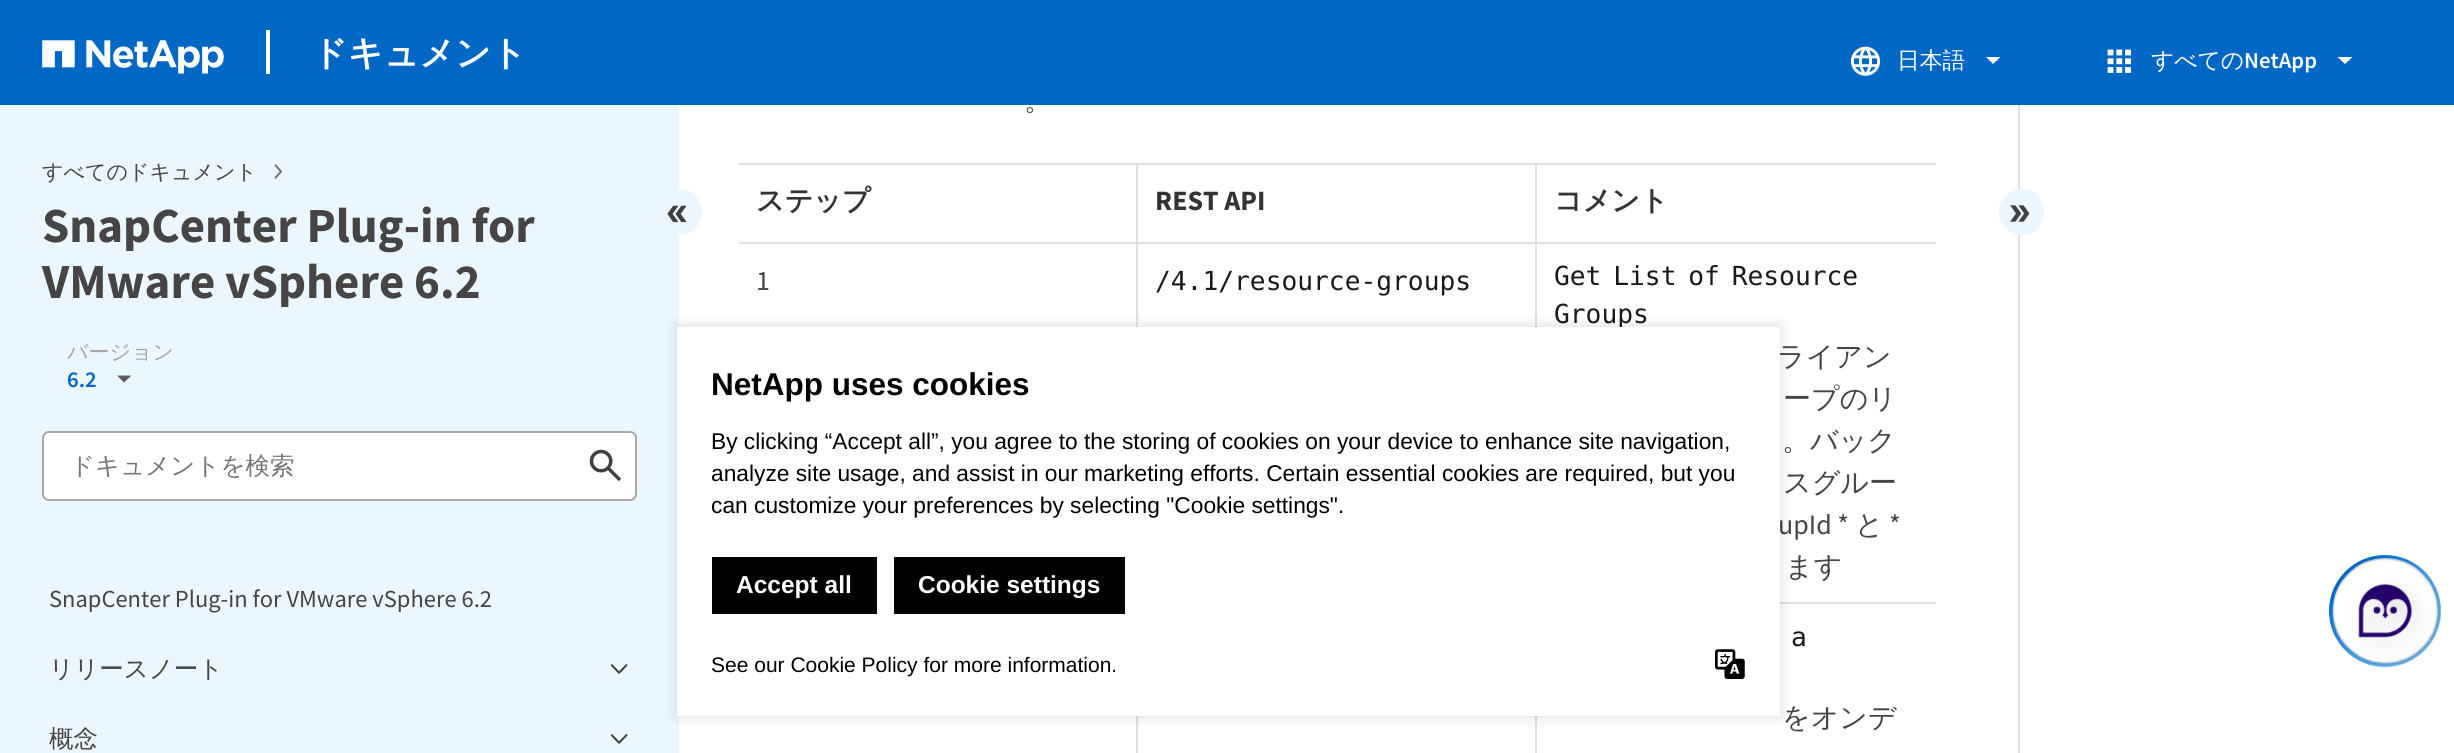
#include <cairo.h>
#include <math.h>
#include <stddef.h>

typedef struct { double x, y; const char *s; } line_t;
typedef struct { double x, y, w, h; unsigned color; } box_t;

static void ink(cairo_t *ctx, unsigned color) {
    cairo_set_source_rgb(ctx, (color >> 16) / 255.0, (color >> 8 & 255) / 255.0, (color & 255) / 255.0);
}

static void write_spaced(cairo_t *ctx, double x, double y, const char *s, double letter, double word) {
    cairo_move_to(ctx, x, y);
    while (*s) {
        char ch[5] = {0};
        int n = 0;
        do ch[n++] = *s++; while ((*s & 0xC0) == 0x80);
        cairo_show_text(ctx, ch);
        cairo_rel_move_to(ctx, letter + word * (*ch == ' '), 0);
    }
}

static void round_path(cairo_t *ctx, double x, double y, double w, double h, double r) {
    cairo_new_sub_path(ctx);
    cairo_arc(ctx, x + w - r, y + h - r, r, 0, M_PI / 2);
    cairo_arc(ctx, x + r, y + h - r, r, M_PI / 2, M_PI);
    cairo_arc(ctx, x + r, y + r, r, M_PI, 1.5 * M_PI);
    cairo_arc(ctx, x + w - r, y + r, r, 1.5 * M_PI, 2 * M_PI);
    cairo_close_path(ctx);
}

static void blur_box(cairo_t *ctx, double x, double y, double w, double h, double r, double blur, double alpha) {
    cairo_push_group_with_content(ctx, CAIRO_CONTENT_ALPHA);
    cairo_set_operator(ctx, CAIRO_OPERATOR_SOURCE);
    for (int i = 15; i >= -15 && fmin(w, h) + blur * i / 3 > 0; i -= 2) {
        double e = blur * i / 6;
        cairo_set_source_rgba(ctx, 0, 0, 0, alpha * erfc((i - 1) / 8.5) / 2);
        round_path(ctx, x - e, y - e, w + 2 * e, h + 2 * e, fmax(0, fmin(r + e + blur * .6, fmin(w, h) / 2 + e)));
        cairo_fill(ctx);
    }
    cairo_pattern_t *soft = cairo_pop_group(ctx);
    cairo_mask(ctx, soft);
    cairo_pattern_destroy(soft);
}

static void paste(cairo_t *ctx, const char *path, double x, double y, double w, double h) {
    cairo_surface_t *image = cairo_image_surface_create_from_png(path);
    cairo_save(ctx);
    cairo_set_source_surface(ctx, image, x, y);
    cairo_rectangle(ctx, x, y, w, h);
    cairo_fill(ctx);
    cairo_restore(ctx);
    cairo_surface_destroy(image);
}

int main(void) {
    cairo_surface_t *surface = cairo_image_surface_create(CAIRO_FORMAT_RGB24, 2454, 753);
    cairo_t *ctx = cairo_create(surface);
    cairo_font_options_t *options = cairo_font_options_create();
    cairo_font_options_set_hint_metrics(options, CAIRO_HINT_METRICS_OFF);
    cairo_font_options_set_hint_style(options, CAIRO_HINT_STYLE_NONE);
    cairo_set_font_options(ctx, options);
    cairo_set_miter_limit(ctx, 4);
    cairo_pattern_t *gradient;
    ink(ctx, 0xFFFFFF);
    cairo_paint(ctx);
    ink(ctx, 0x0067C5);
    cairo_rectangle(ctx, 0, 0, 2454, 105);
    cairo_fill(ctx);
    paste(ctx, "media/1.png", 42, 40, 182, 34);
    ink(ctx, 0xFFFFFF);
    cairo_rectangle(ctx, 266, 30, 4, 44);
    cairo_fill(ctx);
    cairo_select_font_face(ctx, "WenQuanYi Zen Hei", CAIRO_FONT_SLANT_NORMAL, CAIRO_FONT_WEIGHT_BOLD);
    cairo_set_font_size(ctx, 35);
    cairo_move_to(ctx, 312, 65);
    cairo_show_text(ctx, "ドキュメント");
    paste(ctx, "media/2.png", 1850, 46, 31, 30);
    cairo_select_font_face(ctx, "WenQuanYi Zen Hei Medium", CAIRO_FONT_SLANT_NORMAL, CAIRO_FONT_WEIGHT_NORMAL);
    cairo_set_font_size(ctx, 22.75);
    cairo_move_to(ctx, 1897, 68);
    cairo_show_text(ctx, "日本語");
    ink(ctx, 0xFDFDFD);
    cairo_new_path(ctx);
    cairo_move_to(ctx, 1993, 64);
    cairo_line_to(ctx, 1986, 57);
    cairo_line_to(ctx, 2000.5, 57);
    cairo_close_path(ctx);
    cairo_fill(ctx);
    paste(ctx, "media/3.png", 2107, 49, 24, 24);
    ink(ctx, 0xFFFFFF);
    cairo_move_to(ctx, 2151, 68);
    cairo_show_text(ctx, "すべての");
    cairo_select_font_face(ctx, "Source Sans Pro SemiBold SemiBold", CAIRO_FONT_SLANT_NORMAL, CAIRO_FONT_WEIGHT_NORMAL);
    cairo_move_to(ctx, 2244, 68);
    cairo_show_text(ctx, "NetApp");
    ink(ctx, 0xFDFDFD);
    cairo_new_path(ctx);
    cairo_move_to(ctx, 2345, 64);
    cairo_line_to(ctx, 2337.5, 57);
    cairo_line_to(ctx, 2352.5, 57);
    cairo_close_path(ctx);
    cairo_fill(ctx);
    ink(ctx, 0xECF6FF);
    cairo_rectangle(ctx, 0, 105, 679, 648);
    cairo_fill(ctx);
    cairo_select_font_face(ctx, "WenQuanYi Zen Hei Medium", CAIRO_FONT_SLANT_NORMAL, CAIRO_FONT_WEIGHT_NORMAL);
    cairo_set_font_size(ctx, 21);
    ink(ctx, 0x454545);
    cairo_move_to(ctx, 42, 179);
    cairo_show_text(ctx, "すべてのドキュメント");
    paste(ctx, "media/4.png", 274, 164, 8, 15);
    cairo_select_font_face(ctx, "Source Sans Pro", CAIRO_FONT_SLANT_NORMAL, CAIRO_FONT_WEIGHT_BOLD);
    cairo_set_font_size(ctx, 49);
    cairo_move_to(ctx, 42, 242);
    cairo_show_text(ctx, "SnapCenter Plug-in for");
    cairo_move_to(ctx, 42, 298);
    cairo_show_text(ctx, "VMware vSphere 6.2");
    ink(ctx, 0xECF6FF);
    cairo_new_path(ctx);
    cairo_arc(ctx, 679, 212, 23, 0, 2 * M_PI);
    cairo_fill(ctx);
    paste(ctx, "media/5.png", 667, 205, 20, 18);
    cairo_select_font_face(ctx, "WenQuanYi Zen Hei Medium", CAIRO_FONT_SLANT_NORMAL, CAIRO_FONT_WEIGHT_NORMAL);
    cairo_set_font_size(ctx, 21);
    ink(ctx, 0xA7A7A7);
    cairo_move_to(ctx, 67, 359);
    cairo_show_text(ctx, "バージョン");
    cairo_select_font_face(ctx, "Source Sans Pro SemiBold SemiBold", CAIRO_FONT_SLANT_NORMAL, CAIRO_FONT_WEIGHT_NORMAL);
    cairo_set_font_size(ctx, 22.75);
    ink(ctx, 0x0067C5);
    cairo_move_to(ctx, 67, 387);
    cairo_show_text(ctx, "6.2");
    ink(ctx, 0x5E5E5E);
    cairo_new_path(ctx);
    cairo_move_to(ctx, 124, 382.5);
    cairo_line_to(ctx, 117, 375.5);
    cairo_line_to(ctx, 131.5, 375.5);
    cairo_close_path(ctx);
    cairo_fill(ctx);
    ink(ctx, 0xFFFFFF);
    round_path(ctx, 43, 432, 593, 68, 6);
    cairo_fill_preserve(ctx);
    ink(ctx, 0xA7A7A7);
    cairo_stroke(ctx);
    cairo_select_font_face(ctx, "WenQuanYi Zen Hei Medium", CAIRO_FONT_SLANT_NORMAL, CAIRO_FONT_WEIGHT_NORMAL);
    cairo_set_font_size(ctx, 24.5);
    ink(ctx, 0x757575);
    cairo_move_to(ctx, 70, 474);
    cairo_show_text(ctx, "ドキュメントを検索");
    paste(ctx, "media/6.png", 589, 449, 33, 33);
    cairo_select_font_face(ctx, "Source Sans Pro", CAIRO_FONT_SLANT_NORMAL, CAIRO_FONT_WEIGHT_NORMAL);
    ink(ctx, 0x454545);
    cairo_move_to(ctx, 49, 607);
    cairo_show_text(ctx, "SnapCenter Plug-in for VMware vSphere 6.2");
    cairo_select_font_face(ctx, "WenQuanYi Zen Hei Medium", CAIRO_FONT_SLANT_NORMAL, CAIRO_FONT_WEIGHT_NORMAL);
    cairo_move_to(ctx, 49, 677);
    cairo_show_text(ctx, "リリースノート");
    paste(ctx, "media/7.png", 611, 664, 17, 10);
    cairo_move_to(ctx, 49, 747);
    cairo_show_text(ctx, "概念");
    paste(ctx, "media/7.png", 611, 734, 17, 10);
    cairo_set_font_size(ctx, 28);
    cairo_move_to(ctx, 1024, 110);
    cairo_show_text(ctx, "。");
    {
        static const box_t items[] = {
            {739, 163, 1197, 2, 0xE0E0E0},
            {1136, 165, 2, 78, 0xE0E0E0},
            {739, 242, 399, 2, 0xE0E0E0},
        };
        for (size_t i = 0; i < sizeof items / sizeof *items; i++) {
            ink(ctx, items[i].color);
            cairo_rectangle(ctx, items[i].x, items[i].y, items[i].w, items[i].h);
            cairo_fill(ctx);
        }
    }
    cairo_select_font_face(ctx, "WenQuanYi Zen Hei", CAIRO_FONT_SLANT_NORMAL, CAIRO_FONT_WEIGHT_BOLD);
    ink(ctx, 0x333333);
    cairo_move_to(ctx, 756, 210);
    cairo_show_text(ctx, "ステップ");
    ink(ctx, 0xE0E0E0);
    cairo_rectangle(ctx, 1535, 165, 2, 78);
    cairo_fill(ctx);
    cairo_rectangle(ctx, 1138, 242, 798, 2);
    cairo_fill(ctx);
    cairo_select_font_face(ctx, "Source Sans Pro", CAIRO_FONT_SLANT_NORMAL, CAIRO_FONT_WEIGHT_BOLD);
    ink(ctx, 0x333333);
    cairo_move_to(ctx, 1155, 210);
    cairo_show_text(ctx, "REST API");
    cairo_select_font_face(ctx, "WenQuanYi Zen Hei", CAIRO_FONT_SLANT_NORMAL, CAIRO_FONT_WEIGHT_BOLD);
    cairo_move_to(ctx, 1554, 210);
    cairo_show_text(ctx, "コメント");
    ink(ctx, 0xE0E0E0);
    cairo_rectangle(ctx, 1136, 243, 2, 84);
    cairo_fill(ctx);
    cairo_select_font_face(ctx, "Source Sans Pro", CAIRO_FONT_SLANT_NORMAL, CAIRO_FONT_WEIGHT_NORMAL);
    ink(ctx, 0x454545);
    cairo_move_to(ctx, 756, 290);
    cairo_show_text(ctx, "1");
    ink(ctx, 0xE0E0E0);
    cairo_rectangle(ctx, 1535, 243, 2, 84);
    cairo_fill(ctx);
    cairo_select_font_face(ctx, "DejaVu Sans Mono", CAIRO_FONT_SLANT_NORMAL, CAIRO_FONT_WEIGHT_NORMAL);
    cairo_set_font_size(ctx, 26.25);
    ink(ctx, 0x1A1A1A);
    cairo_move_to(ctx, 1155, 290);
    cairo_show_text(ctx, "/4.1/resource-groups");
    ink(ctx, 0xE0E0E0);
    cairo_rectangle(ctx, 1780, 602, 156, 2);
    cairo_fill(ctx);
    ink(ctx, 0x1A1A1A);
    write_spaced(ctx, 1554, 285, "Get List of Resource", 0, -4);
    cairo_move_to(ctx, 1554, 323);
    cairo_show_text(ctx, "Groups");
    cairo_select_font_face(ctx, "WenQuanYi Zen Hei Medium", CAIRO_FONT_SLANT_NORMAL, CAIRO_FONT_WEIGHT_NORMAL);
    cairo_set_font_size(ctx, 28);
    ink(ctx, 0x454545);
    {
        static const line_t items[] = {
            {1777, 366, "ライアン"},
            {1783, 408, "ープのリ"},
            {1782, 450, "。バック"},
            {1783, 492, "スグルー"},
        };
        for (size_t i = 0; i < sizeof items / sizeof *items; i++) {
            cairo_move_to(ctx, items[i].x, items[i].y);
            cairo_show_text(ctx, items[i].s);
        }
    }
    cairo_select_font_face(ctx, "Source Sans Pro", CAIRO_FONT_SLANT_NORMAL, CAIRO_FONT_WEIGHT_NORMAL);
    cairo_move_to(ctx, 1778, 534);
    cairo_show_text(ctx, "upId *");
    cairo_select_font_face(ctx, "WenQuanYi Zen Hei Medium", CAIRO_FONT_SLANT_NORMAL, CAIRO_FONT_WEIGHT_NORMAL);
    cairo_move_to(ctx, 1855, 534);
    cairo_show_text(ctx, "と");
    cairo_select_font_face(ctx, "Source Sans Pro", CAIRO_FONT_SLANT_NORMAL, CAIRO_FONT_WEIGHT_NORMAL);
    cairo_move_to(ctx, 1889, 534);
    cairo_show_text(ctx, "*");
    cairo_select_font_face(ctx, "WenQuanYi Zen Hei Medium", CAIRO_FONT_SLANT_NORMAL, CAIRO_FONT_WEIGHT_NORMAL);
    cairo_move_to(ctx, 1785, 576);
    cairo_show_text(ctx, "ます");
    ink(ctx, 0xE0E0E0);
    cairo_rectangle(ctx, 1136, 716, 2, 37);
    cairo_fill(ctx);
    cairo_rectangle(ctx, 1535, 716, 2, 37);
    cairo_fill(ctx);
    cairo_select_font_face(ctx, "DejaVu Sans Mono", CAIRO_FONT_SLANT_NORMAL, CAIRO_FONT_WEIGHT_NORMAL);
    cairo_set_font_size(ctx, 26.25);
    ink(ctx, 0x1A1A1A);
    write_spaced(ctx, 1791, 646, "a", 0, -4);
    cairo_select_font_face(ctx, "WenQuanYi Zen Hei Medium", CAIRO_FONT_SLANT_NORMAL, CAIRO_FONT_WEIGHT_NORMAL);
    cairo_set_font_size(ctx, 28);
    ink(ctx, 0x454545);
    cairo_move_to(ctx, 1782, 727);
    cairo_show_text(ctx, "をオンデ");
    ink(ctx, 0xE0E0E0);
    cairo_rectangle(ctx, 2018, 105, 2, 648);
    cairo_fill(ctx);
    ink(ctx, 0xECF6FF);
    round_path(ctx, 1999, 189, 45, 46, 22.5);
    cairo_fill(ctx);
    paste(ctx, "media/8.png", 2010, 205, 20, 17);
    gradient = cairo_pattern_create_linear(2329, 555, 2441, 667);
    cairo_pattern_add_color_stop_rgba(gradient, 0.18, 0, 0.404, 0.773, 1);
    cairo_pattern_add_color_stop_rgba(gradient, 0.89, 0.478, 0.765, 0.98, 1);
    cairo_set_source(ctx, gradient);
    cairo_pattern_destroy(gradient);
    cairo_arc(ctx, 2385, 611, 56, 0, 2 * M_PI);
    cairo_fill(ctx);
    paste(ctx, "media/9.png", 2332, 558, 108, 108);
    ink(ctx, 0x000000);
    blur_box(ctx, 677, 327, 1103, 389, 0, 7, 0.15);
    ink(ctx, 0xFFFFFF);
    cairo_rectangle(ctx, 677, 327, 1103, 389);
    cairo_fill(ctx);
    cairo_select_font_face(ctx, "Liberation Sans", CAIRO_FONT_SLANT_NORMAL, CAIRO_FONT_WEIGHT_BOLD);
    cairo_set_font_size(ctx, 31.5);
    ink(ctx, 0x000000);
    cairo_move_to(ctx, 711, 395);
    cairo_show_text(ctx, "NetApp uses cookies");
    cairo_select_font_face(ctx, "Liberation Sans", CAIRO_FONT_SLANT_NORMAL, CAIRO_FONT_WEIGHT_NORMAL);
    cairo_set_font_size(ctx, 22.75);
    {
        static const line_t items[] = {
            {711, 449, "By clicking “Accept all”, you agree to the storing of cookies on your device to enhance site navigation,"},
            {711, 481, "analyze site usage, and assist in our marketing efforts. Certain essential cookies are required, but you"},
            {711, 513, "can customize your preferences by selecting \"Cookie settings\"."},
        };
        for (size_t i = 0; i < sizeof items / sizeof *items; i++) {
            cairo_move_to(ctx, items[i].x, items[i].y);
            cairo_show_text(ctx, items[i].s);
        }
    }
    cairo_rectangle(ctx, 712, 557, 165, 57);
    cairo_fill(ctx);
    cairo_select_font_face(ctx, "Liberation Sans", CAIRO_FONT_SLANT_NORMAL, CAIRO_FONT_WEIGHT_BOLD);
    cairo_set_font_size(ctx, 24.5);
    ink(ctx, 0xFFFFFF);
    cairo_move_to(ctx, 736, 593);
    cairo_show_text(ctx, "Accept all");
    ink(ctx, 0x000000);
    cairo_rectangle(ctx, 894, 557, 231, 57);
    cairo_fill(ctx);
    ink(ctx, 0xFFFFFF);
    cairo_move_to(ctx, 918, 593);
    cairo_show_text(ctx, "Cookie settings");
    cairo_select_font_face(ctx, "Liberation Sans", CAIRO_FONT_SLANT_NORMAL, CAIRO_FONT_WEIGHT_NORMAL);
    cairo_set_font_size(ctx, 21);
    ink(ctx, 0x000000);
    cairo_move_to(ctx, 711, 672);
    cairo_show_text(ctx, "See our Cookie Policy for more information.");
    paste(ctx, "media/10.png", 1715, 649, 30, 30);
    cairo_surface_write_to_png(surface, "image.png");
    cairo_font_options_destroy(options);
    cairo_destroy(ctx);
    cairo_surface_destroy(surface);
    return 0;
}
